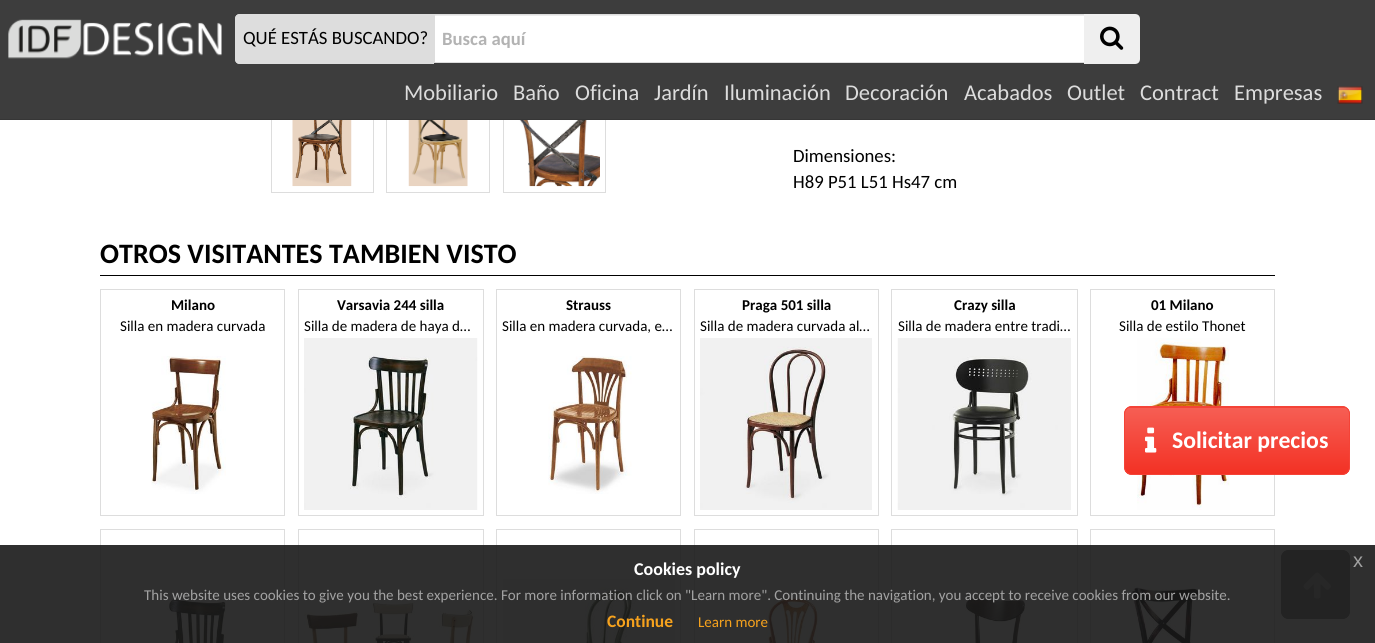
#include <cairo.h>
#include <math.h>
#include <stddef.h>

typedef struct { double x, y; const char *s; } line_t;

static void ink(cairo_t *ctx, unsigned color) {
    cairo_set_source_rgb(ctx, (color >> 16) / 255.0, (color >> 8 & 255) / 255.0, (color & 255) / 255.0);
}

static void round_path(cairo_t *ctx, double x, double y, double w, double h, double r) {
    cairo_new_sub_path(ctx);
    cairo_arc(ctx, x + w - r, y + h - r, r, 0, M_PI / 2);
    cairo_arc(ctx, x + r, y + h - r, r, M_PI / 2, M_PI);
    cairo_arc(ctx, x + r, y + r, r, M_PI, 1.5 * M_PI);
    cairo_arc(ctx, x + w - r, y + r, r, 1.5 * M_PI, 2 * M_PI);
    cairo_close_path(ctx);
}

static void paste(cairo_t *ctx, const char *path, double x, double y, double w, double h) {
    cairo_surface_t *image = cairo_image_surface_create_from_png(path);
    cairo_save(ctx);
    cairo_set_source_surface(ctx, image, x, y);
    cairo_rectangle(ctx, x, y, w, h);
    cairo_fill(ctx);
    cairo_restore(ctx);
    cairo_surface_destroy(image);
}

int main(void) {
    cairo_surface_t *surface = cairo_image_surface_create(CAIRO_FORMAT_RGB24, 1375, 643);
    cairo_t *ctx = cairo_create(surface);
    cairo_font_options_t *options = cairo_font_options_create();
    cairo_font_options_set_hint_metrics(options, CAIRO_HINT_METRICS_OFF);
    cairo_font_options_set_hint_style(options, CAIRO_HINT_STYLE_NONE);
    cairo_set_font_options(ctx, options);
    cairo_set_miter_limit(ctx, 4);
    cairo_pattern_t *gradient;
    ink(ctx, 0xFFFFFF);
    cairo_paint(ctx);
    cairo_rectangle(ctx, 271.5, 90.5, 102, 102);
    ink(ctx, 0xDDDDDD);
    cairo_set_line_width(ctx, 1);
    cairo_stroke(ctx);
    cairo_rectangle(ctx, 386.5, 90.5, 103, 102);
    cairo_stroke(ctx);
    cairo_rectangle(ctx, 503.5, 90.5, 102, 102);
    cairo_stroke(ctx);
    ink(ctx, 0x3D3D3D);
    cairo_rectangle(ctx, 0, 0, 1375, 119);
    cairo_fill(ctx);
    ink(ctx, 0x363636);
    cairo_rectangle(ctx, 0, 119, 1375, 1);
    cairo_fill(ctx);
    paste(ctx, "media/1.png", 8, 19, 214, 40);
    ink(ctx, 0xDDDDDD);
    cairo_new_path(ctx);
    cairo_move_to(ctx, 240, 14);
    cairo_line_to(ctx, 434, 14);
    cairo_line_to(ctx, 434, 64);
    cairo_line_to(ctx, 240, 64);
    cairo_curve_to(ctx, 237, 64, 235, 62, 235, 59);
    cairo_line_to(ctx, 235, 19);
    cairo_curve_to(ctx, 235, 16, 237, 14, 240, 14);
    cairo_close_path(ctx);
    cairo_fill(ctx);
    cairo_set_fill_rule(ctx, CAIRO_FILL_RULE_EVEN_ODD);
    cairo_new_path(ctx);
    cairo_move_to(ctx, 240, 14);
    cairo_line_to(ctx, 434, 14);
    cairo_line_to(ctx, 434, 64);
    cairo_line_to(ctx, 240, 64);
    cairo_curve_to(ctx, 237, 64, 235, 62, 235, 59);
    cairo_line_to(ctx, 235, 19);
    cairo_curve_to(ctx, 235, 16, 237, 14, 240, 14);
    cairo_close_path(ctx);
    cairo_move_to(ctx, 240, 15);
    cairo_line_to(ctx, 434, 15);
    cairo_line_to(ctx, 434, 62);
    cairo_line_to(ctx, 240, 62);
    cairo_curve_to(ctx, 238, 62, 236, 61, 236, 59);
    cairo_line_to(ctx, 236, 19);
    cairo_curve_to(ctx, 236, 17, 238, 15, 240, 15);
    cairo_close_path(ctx);
    cairo_fill(ctx);
    cairo_select_font_face(ctx, "Carlito", CAIRO_FONT_SLANT_NORMAL, CAIRO_FONT_WEIGHT_NORMAL);
    cairo_set_font_size(ctx, 18.75);
    ink(ctx, 0x000000);
    cairo_move_to(ctx, 243, 44);
    cairo_show_text(ctx, "QUÉ ESTÁS BUSCANDO?");
    ink(ctx, 0xFFFFFF);
    cairo_rectangle(ctx, 435, 16, 649, 46);
    cairo_fill(ctx);
    ink(ctx, 0xECECEC);
    cairo_rectangle(ctx, 435, 15, 649, 1);
    cairo_fill(ctx);
    cairo_rectangle(ctx, 434.5, 14.5, 650, 48);
    ink(ctx, 0xDDDDDD);
    cairo_stroke(ctx);
    cairo_select_font_face(ctx, "Carlito", CAIRO_FONT_SLANT_NORMAL, CAIRO_FONT_WEIGHT_BOLD);
    ink(ctx, 0xB3B3B3);
    cairo_move_to(ctx, 442, 45);
    cairo_show_text(ctx, "Busca aquí");
    ink(ctx, 0xEFEFEF);
    cairo_new_path(ctx);
    cairo_move_to(ctx, 1084, 14);
    cairo_line_to(ctx, 1135, 14);
    cairo_curve_to(ctx, 1138, 14, 1140, 16, 1140, 19);
    cairo_line_to(ctx, 1140, 59);
    cairo_curve_to(ctx, 1140, 62, 1138, 64, 1135, 64);
    cairo_line_to(ctx, 1084, 64);
    cairo_close_path(ctx);
    cairo_fill(ctx);
    paste(ctx, "media/2.png", 1100, 26, 24, 24);
    cairo_select_font_face(ctx, "Carlito", CAIRO_FONT_SLANT_NORMAL, CAIRO_FONT_WEIGHT_NORMAL);
    cairo_set_font_size(ctx, 22.5);
    ink(ctx, 0xDCDCDC);
    {
        static const line_t items[] = {
            {404, 100, "Mobiliario"},
            {513, 100, "Baño"},
            {575, 100, "Oficina"},
            {654, 100, "Jardín"},
            {724, 100, "Iluminación"},
            {845, 100, "Decoración"},
            {964, 100, "Acabados"},
            {1067, 100, "Outlet"},
            {1140, 100, "Contract"},
            {1234, 100, "Empresas"},
        };
        for (size_t i = 0; i < sizeof items / sizeof *items; i++) {
            cairo_move_to(ctx, items[i].x, items[i].y);
            cairo_show_text(ctx, items[i].s);
        }
    }
    paste(ctx, "media/3.png", 1337, 86, 26, 18);
    paste(ctx, "media/4.png", 292, 120, 60, 67);
    paste(ctx, "media/5.png", 408, 120, 60, 67);
    paste(ctx, "media/6.png", 511, 120, 89, 67);
    cairo_set_font_size(ctx, 18.75);
    ink(ctx, 0x000000);
    cairo_move_to(ctx, 793, 162);
    cairo_show_text(ctx, "Dimensiones:");
    cairo_move_to(ctx, 793, 188);
    cairo_show_text(ctx, "H89 P51 L51 Hs47 cm");
    cairo_select_font_face(ctx, "Carlito", CAIRO_FONT_SLANT_NORMAL, CAIRO_FONT_WEIGHT_BOLD);
    cairo_set_font_size(ctx, 28.1);
    cairo_move_to(ctx, 100, 263);
    cairo_show_text(ctx, "OTROS VISITANTES TAMBIEN VISTO");
    cairo_rectangle(ctx, 100, 275, 1175, 1);
    cairo_fill(ctx);
    cairo_rectangle(ctx, 100.5, 289.5, 184, 226);
    ink(ctx, 0xDDDDDD);
    cairo_stroke(ctx);
    cairo_set_font_size(ctx, 15);
    ink(ctx, 0x000000);
    cairo_move_to(ctx, 171, 310);
    cairo_show_text(ctx, "Milano");
    cairo_select_font_face(ctx, "Carlito", CAIRO_FONT_SLANT_NORMAL, CAIRO_FONT_WEIGHT_NORMAL);
    cairo_move_to(ctx, 120, 331);
    cairo_show_text(ctx, "Silla en madera curvada");
    paste(ctx, "media/7.png", 151, 356, 75, 138);
    cairo_rectangle(ctx, 298.5, 289.5, 185, 226);
    ink(ctx, 0xDDDDDD);
    cairo_stroke(ctx);
    cairo_select_font_face(ctx, "Carlito", CAIRO_FONT_SLANT_NORMAL, CAIRO_FONT_WEIGHT_BOLD);
    ink(ctx, 0x000000);
    cairo_move_to(ctx, 337, 310);
    cairo_show_text(ctx, "Varsavia 244 silla");
    cairo_select_font_face(ctx, "Carlito", CAIRO_FONT_SLANT_NORMAL, CAIRO_FONT_WEIGHT_NORMAL);
    cairo_move_to(ctx, 304, 331);
    cairo_show_text(ctx, "Silla de madera de haya d…");
    paste(ctx, "media/8.png", 304, 338, 174, 172);
    cairo_rectangle(ctx, 496.5, 289.5, 184, 226);
    ink(ctx, 0xDDDDDD);
    cairo_stroke(ctx);
    cairo_select_font_face(ctx, "Carlito", CAIRO_FONT_SLANT_NORMAL, CAIRO_FONT_WEIGHT_BOLD);
    ink(ctx, 0x000000);
    cairo_move_to(ctx, 566, 310);
    cairo_show_text(ctx, "Strauss");
    cairo_select_font_face(ctx, "Carlito", CAIRO_FONT_SLANT_NORMAL, CAIRO_FONT_WEIGHT_NORMAL);
    cairo_move_to(ctx, 502, 331);
    cairo_show_text(ctx, "Silla en madera curvada, e…");
    paste(ctx, "media/9.png", 548, 356, 84, 138);
    cairo_rectangle(ctx, 694.5, 289.5, 184, 226);
    ink(ctx, 0xDDDDDD);
    cairo_stroke(ctx);
    cairo_select_font_face(ctx, "Carlito", CAIRO_FONT_SLANT_NORMAL, CAIRO_FONT_WEIGHT_BOLD);
    ink(ctx, 0x000000);
    cairo_move_to(ctx, 742, 310);
    cairo_show_text(ctx, "Praga 501 silla");
    cairo_select_font_face(ctx, "Carlito", CAIRO_FONT_SLANT_NORMAL, CAIRO_FONT_WEIGHT_NORMAL);
    cairo_move_to(ctx, 700, 331);
    cairo_show_text(ctx, "Silla de madera curvada al…");
    paste(ctx, "media/10.png", 700, 338, 172, 172);
    cairo_rectangle(ctx, 891.5, 289.5, 186, 226);
    ink(ctx, 0xDDDDDD);
    cairo_stroke(ctx);
    cairo_select_font_face(ctx, "Carlito", CAIRO_FONT_SLANT_NORMAL, CAIRO_FONT_WEIGHT_BOLD);
    ink(ctx, 0x000000);
    cairo_move_to(ctx, 954, 310);
    cairo_show_text(ctx, "Crazy silla");
    cairo_select_font_face(ctx, "Carlito", CAIRO_FONT_SLANT_NORMAL, CAIRO_FONT_WEIGHT_NORMAL);
    cairo_move_to(ctx, 898, 331);
    cairo_show_text(ctx, "Silla de madera entre tradi…");
    paste(ctx, "media/11.png", 897, 338, 174, 172);
    cairo_rectangle(ctx, 1090.5, 289.5, 184, 226);
    ink(ctx, 0xDDDDDD);
    cairo_stroke(ctx);
    cairo_select_font_face(ctx, "Carlito", CAIRO_FONT_SLANT_NORMAL, CAIRO_FONT_WEIGHT_BOLD);
    ink(ctx, 0x000000);
    cairo_move_to(ctx, 1151, 310);
    cairo_show_text(ctx, "01 Milano");
    cairo_select_font_face(ctx, "Carlito", CAIRO_FONT_SLANT_NORMAL, CAIRO_FONT_WEIGHT_NORMAL);
    cairo_move_to(ctx, 1119, 331);
    cairo_show_text(ctx, "Silla de estilo Thonet");
    paste(ctx, "media/12.png", 1137, 338, 93, 172);
    cairo_rectangle(ctx, 100.5, 529.5, 184, 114);
    ink(ctx, 0xDDDDDD);
    cairo_stroke(ctx);
    paste(ctx, "media/13.png", 167, 597, 59, 46);
    cairo_rectangle(ctx, 298.5, 529.5, 185, 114);
    cairo_stroke(ctx);
    paste(ctx, "media/14.png", 304, 602, 171, 41);
    cairo_rectangle(ctx, 496.5, 529.5, 184, 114);
    cairo_stroke(ctx);
    paste(ctx, "media/15.png", 502, 579, 173, 64);
    cairo_rectangle(ctx, 694.5, 529.5, 184, 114);
    cairo_stroke(ctx);
    paste(ctx, "media/16.png", 764, 597, 56, 46);
    cairo_rectangle(ctx, 891.5, 529.5, 186, 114);
    cairo_stroke(ctx);
    paste(ctx, "media/17.png", 962, 597, 65, 46);
    cairo_rectangle(ctx, 1090.5, 529.5, 184, 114);
    cairo_stroke(ctx);
    paste(ctx, "media/18.png", 1130, 586, 69, 57);
    ink(ctx, 0xF44337);
    round_path(ctx, 1124, 406, 226, 69, 8);
    cairo_fill(ctx);
    cairo_save(ctx);
    cairo_set_fill_rule(ctx, CAIRO_FILL_RULE_WINDING);
    round_path(ctx, 1124, 406, 226, 69, 8);
    cairo_clip(ctx);
    gradient = cairo_pattern_create_linear(1237, 408, 1237, 474);
    cairo_pattern_add_color_stop_rgba(gradient, 0, 0.965, 0.369, 0.329, 1);
    cairo_pattern_add_color_stop_rgba(gradient, 0.6, 0.957, 0.263, 0.216, 1);
    cairo_pattern_add_color_stop_rgba(gradient, 1, 0.953, 0.192, 0.141, 1);
    cairo_set_source(ctx, gradient);
    cairo_pattern_destroy(gradient);
    cairo_rectangle(ctx, 1125, 408, 224, 66);
    cairo_fill(ctx);
    cairo_restore(ctx);
    round_path(ctx, 1124.5, 406.5, 225, 68, 7.5);
    cairo_stroke(ctx);
    paste(ctx, "media/19.png", 1145, 427, 12, 26);
    cairo_select_font_face(ctx, "Carlito", CAIRO_FONT_SLANT_NORMAL, CAIRO_FONT_WEIGHT_BOLD);
    cairo_set_font_size(ctx, 23.75);
    ink(ctx, 0xFFFFFF);
    cairo_move_to(ctx, 1172, 448);
    cairo_show_text(ctx, "Solicitar precios");
    ink(ctx, 0x808080);
    round_path(ctx, 1281, 550, 69, 69, 8);
    cairo_fill(ctx);
    cairo_save(ctx);
    cairo_set_fill_rule(ctx, CAIRO_FILL_RULE_WINDING);
    round_path(ctx, 1281, 550, 69, 69, 8);
    cairo_clip(ctx);
    gradient = cairo_pattern_create_linear(1316, 551, 1316, 618);
    cairo_pattern_add_color_stop_rgba(gradient, 0, 0.529, 0.529, 0.529, 1);
    cairo_pattern_add_color_stop_rgba(gradient, 0.6, 0.502, 0.502, 0.502, 1);
    cairo_pattern_add_color_stop_rgba(gradient, 1, 0.502, 0.502, 0.502, 1);
    cairo_set_source(ctx, gradient);
    cairo_pattern_destroy(gradient);
    cairo_rectangle(ctx, 1283, 551, 66, 67);
    cairo_fill(ctx);
    cairo_restore(ctx);
    round_path(ctx, 1281.5, 550.5, 68, 68, 7.5);
    cairo_stroke(ctx);
    paste(ctx, "media/20.png", 1303, 572, 28, 27);
    cairo_set_source_rgba(ctx, 0.098, 0.098, 0.098, 0.9);
    cairo_rectangle(ctx, 0, 545, 1375, 98);
    cairo_fill(ctx);
    cairo_set_font_size(ctx, 18);
    ink(ctx, 0xFFFFFF);
    cairo_move_to(ctx, 634, 575);
    cairo_show_text(ctx, "Cookies policy");
    cairo_select_font_face(ctx, "Liberation Sans", CAIRO_FONT_SLANT_NORMAL, CAIRO_FONT_WEIGHT_NORMAL);
    cairo_set_font_size(ctx, 20);
    ink(ctx, 0xA2A2A2);
    cairo_move_to(ctx, 1353, 567);
    cairo_show_text(ctx, "x");
    cairo_select_font_face(ctx, "Carlito", CAIRO_FONT_SLANT_NORMAL, CAIRO_FONT_WEIGHT_NORMAL);
    cairo_set_font_size(ctx, 15);
    cairo_move_to(ctx, 144, 600);
    cairo_show_text(ctx, "This website uses cookies to give you the best experience. For more information click on \"Learn more\". Continuing the navigation, you accept to receive cookies from our website.");
    cairo_select_font_face(ctx, "Carlito", CAIRO_FONT_SLANT_NORMAL, CAIRO_FONT_WEIGHT_BOLD);
    cairo_set_font_size(ctx, 17.5);
    ink(ctx, 0xF6A21D);
    cairo_move_to(ctx, 607, 627);
    cairo_show_text(ctx, "Continue");
    cairo_select_font_face(ctx, "Carlito", CAIRO_FONT_SLANT_NORMAL, CAIRO_FONT_WEIGHT_NORMAL);
    cairo_set_font_size(ctx, 15);
    cairo_move_to(ctx, 698, 627);
    cairo_show_text(ctx, "Learn more");
    cairo_surface_write_to_png(surface, "image.png");
    cairo_font_options_destroy(options);
    cairo_destroy(ctx);
    cairo_surface_destroy(surface);
    return 0;
}
